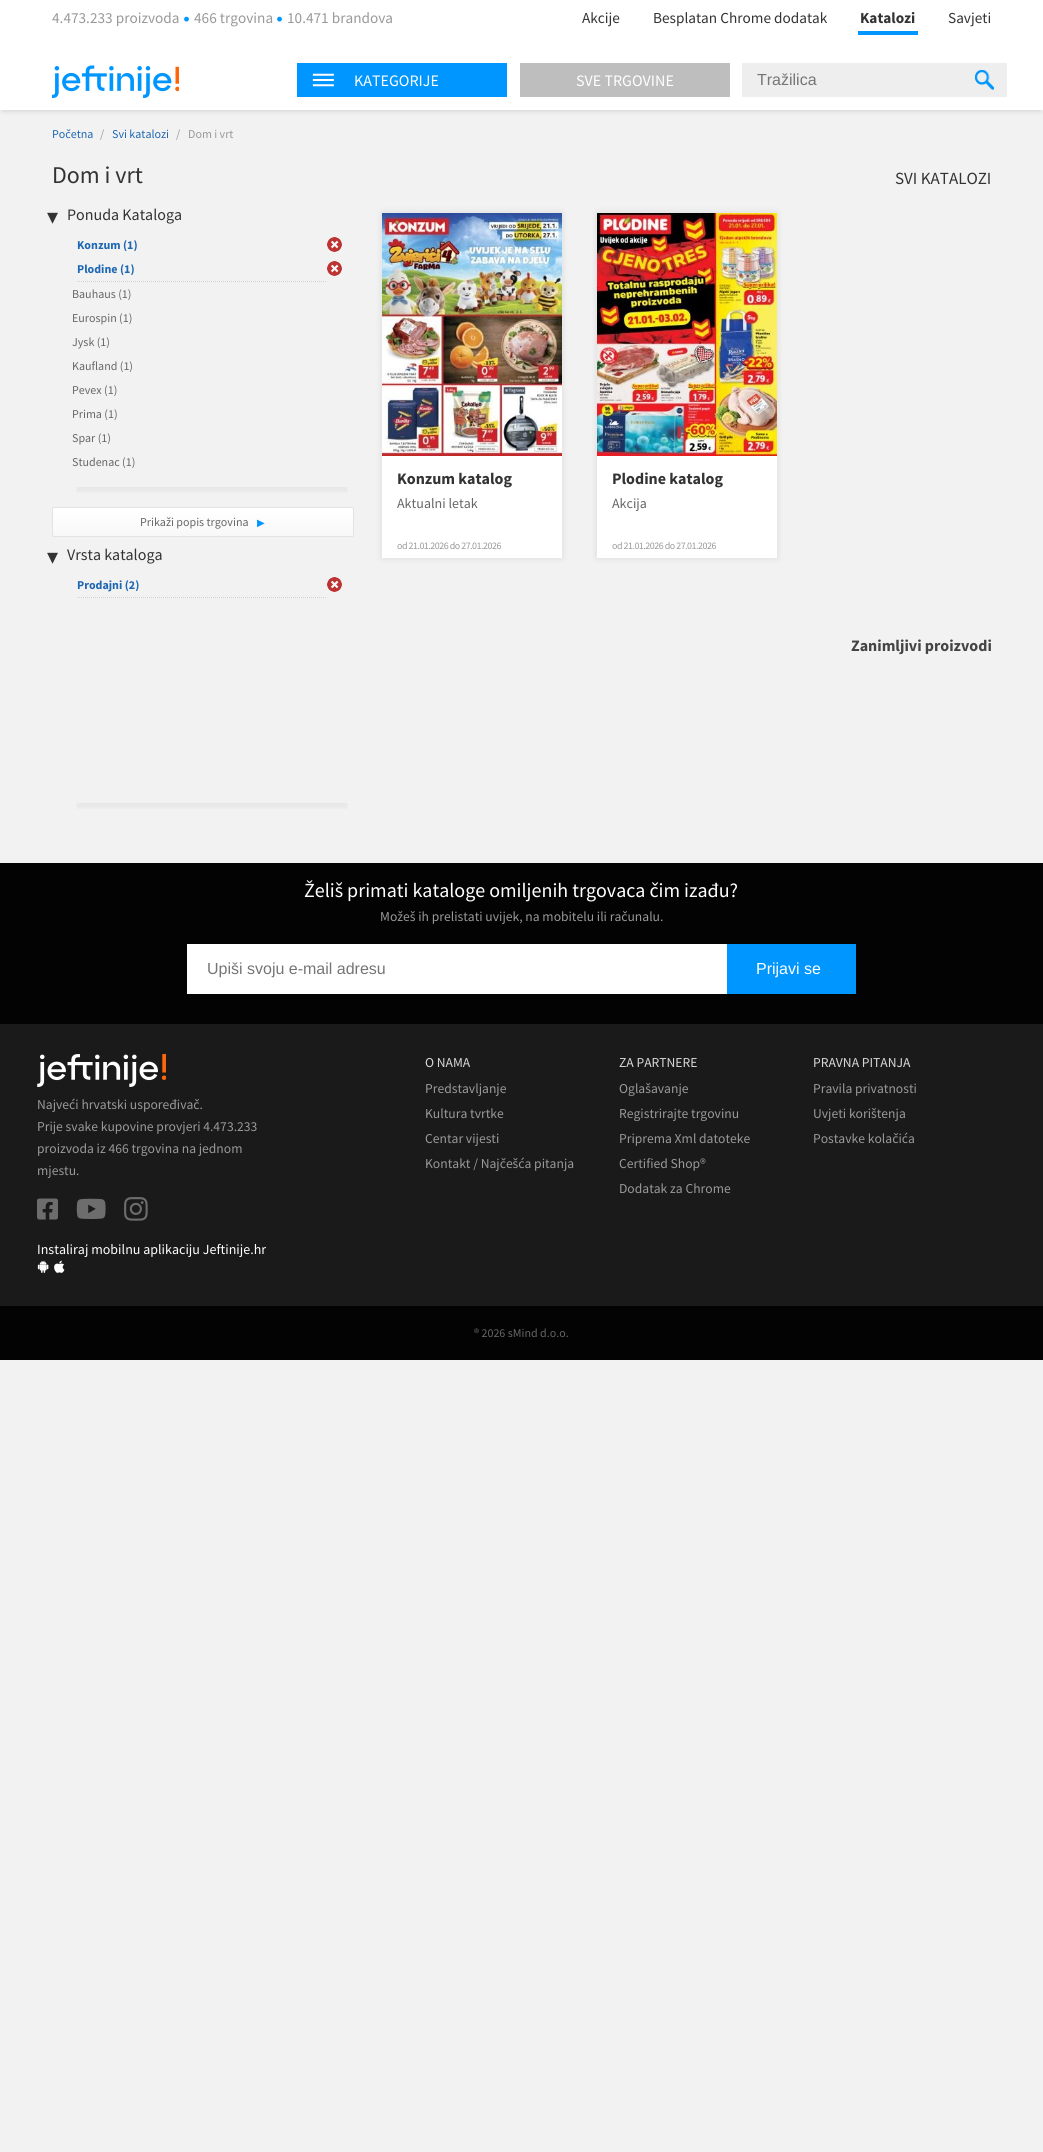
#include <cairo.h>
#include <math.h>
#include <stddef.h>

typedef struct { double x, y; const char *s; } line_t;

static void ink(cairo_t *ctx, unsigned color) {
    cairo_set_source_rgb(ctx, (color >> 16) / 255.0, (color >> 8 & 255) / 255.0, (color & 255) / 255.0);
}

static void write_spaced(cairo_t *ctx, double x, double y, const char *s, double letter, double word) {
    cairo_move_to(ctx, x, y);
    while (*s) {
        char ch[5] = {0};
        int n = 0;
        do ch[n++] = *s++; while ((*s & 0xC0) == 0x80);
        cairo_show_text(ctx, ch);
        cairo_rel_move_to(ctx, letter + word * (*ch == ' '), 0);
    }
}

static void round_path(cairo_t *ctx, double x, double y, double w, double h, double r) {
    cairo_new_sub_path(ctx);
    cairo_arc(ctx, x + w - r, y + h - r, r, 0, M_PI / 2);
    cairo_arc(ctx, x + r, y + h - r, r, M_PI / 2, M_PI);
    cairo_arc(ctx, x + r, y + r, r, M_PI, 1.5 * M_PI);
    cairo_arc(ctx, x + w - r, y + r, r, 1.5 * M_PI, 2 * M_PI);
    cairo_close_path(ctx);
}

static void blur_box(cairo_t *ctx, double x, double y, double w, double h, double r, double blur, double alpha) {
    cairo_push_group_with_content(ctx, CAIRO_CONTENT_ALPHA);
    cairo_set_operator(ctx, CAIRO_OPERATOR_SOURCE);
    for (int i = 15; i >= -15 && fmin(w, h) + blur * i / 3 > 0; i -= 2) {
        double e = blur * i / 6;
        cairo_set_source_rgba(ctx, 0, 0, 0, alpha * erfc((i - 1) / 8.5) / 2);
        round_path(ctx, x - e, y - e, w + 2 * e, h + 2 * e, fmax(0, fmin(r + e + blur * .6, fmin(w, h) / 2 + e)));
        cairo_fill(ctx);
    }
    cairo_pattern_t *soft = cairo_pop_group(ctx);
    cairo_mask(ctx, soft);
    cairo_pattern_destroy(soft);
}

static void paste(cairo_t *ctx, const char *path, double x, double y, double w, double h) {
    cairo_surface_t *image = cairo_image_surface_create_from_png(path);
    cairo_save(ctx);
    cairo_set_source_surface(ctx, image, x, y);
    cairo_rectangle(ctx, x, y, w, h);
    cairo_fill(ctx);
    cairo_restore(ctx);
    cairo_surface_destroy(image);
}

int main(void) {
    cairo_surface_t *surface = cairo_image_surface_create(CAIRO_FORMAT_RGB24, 1043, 2152);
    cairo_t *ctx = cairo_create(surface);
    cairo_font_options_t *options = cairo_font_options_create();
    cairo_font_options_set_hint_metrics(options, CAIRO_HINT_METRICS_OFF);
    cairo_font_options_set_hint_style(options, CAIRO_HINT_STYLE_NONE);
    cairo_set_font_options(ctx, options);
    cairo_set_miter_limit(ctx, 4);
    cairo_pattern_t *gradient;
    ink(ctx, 0xF2F2F2);
    cairo_paint(ctx);
    ink(ctx, 0xFFFFFF);
    cairo_rectangle(ctx, 0, 0, 1043, 50);
    cairo_fill(ctx);
    cairo_select_font_face(ctx, "Source Sans Pro", CAIRO_FONT_SLANT_NORMAL, CAIRO_FONT_WEIGHT_NORMAL);
    cairo_set_font_size(ctx, 15.25);
    ink(ctx, 0x999999);
    cairo_move_to(ctx, 52, 23);
    cairo_show_text(ctx, "4.473.233 proizvoda");
    paste(ctx, "media/1.png", 184, 16, 5, 6);
    cairo_move_to(ctx, 194, 23);
    cairo_show_text(ctx, "466 trgovina");
    paste(ctx, "media/1.png", 277, 16, 5, 6);
    cairo_move_to(ctx, 287, 23);
    cairo_show_text(ctx, "10.471 brandova");
    ink(ctx, 0x333333);
    cairo_move_to(ctx, 582, 23);
    cairo_show_text(ctx, "Akcije");
    cairo_move_to(ctx, 653, 23);
    cairo_show_text(ctx, "Besplatan Chrome dodatak");
    cairo_select_font_face(ctx, "Source Sans Pro", CAIRO_FONT_SLANT_NORMAL, CAIRO_FONT_WEIGHT_BOLD);
    cairo_move_to(ctx, 860, 23);
    cairo_show_text(ctx, "Katalozi");
    ink(ctx, 0x0096FF);
    cairo_rectangle(ctx, 858, 31, 60, 4);
    cairo_fill(ctx);
    cairo_select_font_face(ctx, "Source Sans Pro", CAIRO_FONT_SLANT_NORMAL, CAIRO_FONT_WEIGHT_NORMAL);
    ink(ctx, 0x333333);
    cairo_move_to(ctx, 948, 23);
    cairo_show_text(ctx, "Savjeti");
    ink(ctx, 0x000000);
    blur_box(ctx, 2, 56, 1039, 56, 0, 2, 0.1);
    ink(ctx, 0xFFFFFF);
    cairo_rectangle(ctx, 0, 50, 1043, 60);
    cairo_fill(ctx);
    paste(ctx, "media/2.png", 52, 65, 127, 33);
    ink(ctx, 0x0096FF);
    cairo_rectangle(ctx, 297, 63, 210, 34);
    cairo_fill(ctx);
    paste(ctx, "media/3.png", 312, 73, 22, 14);
    cairo_set_font_size(ctx, 16);
    ink(ctx, 0xFFFFFF);
    cairo_move_to(ctx, 354, 86);
    cairo_show_text(ctx, "KATEGORIJE");
    ink(ctx, 0xBEBEBE);
    cairo_rectangle(ctx, 520, 63, 210, 34);
    cairo_fill(ctx);
    ink(ctx, 0xFFFFFF);
    cairo_move_to(ctx, 576, 86);
    cairo_show_text(ctx, "SVE TRGOVINE");
    ink(ctx, 0xEEEEEE);
    cairo_rectangle(ctx, 742, 63, 265, 34);
    cairo_fill(ctx);
    cairo_select_font_face(ctx, "Liberation Sans", CAIRO_FONT_SLANT_NORMAL, CAIRO_FONT_WEIGHT_NORMAL);
    ink(ctx, 0x757575);
    cairo_move_to(ctx, 757, 85);
    cairo_show_text(ctx, "Tražilica");
    paste(ctx, "media/4.png", 975, 70, 19, 20);
    cairo_select_font_face(ctx, "Source Sans Pro", CAIRO_FONT_SLANT_NORMAL, CAIRO_FONT_WEIGHT_NORMAL);
    cairo_set_font_size(ctx, 12);
    ink(ctx, 0x1E67B3);
    cairo_move_to(ctx, 52, 138);
    cairo_show_text(ctx, "Početna");
    ink(ctx, 0x999999);
    cairo_move_to(ctx, 100, 138);
    cairo_show_text(ctx, "/");
    ink(ctx, 0x1E67B3);
    cairo_move_to(ctx, 112, 138);
    cairo_show_text(ctx, "Svi katalozi");
    ink(ctx, 0x999999);
    cairo_move_to(ctx, 176, 138);
    cairo_show_text(ctx, "/");
    cairo_move_to(ctx, 188, 138);
    cairo_show_text(ctx, "Dom i vrt");
    cairo_set_font_size(ctx, 24);
    ink(ctx, 0x333333);
    cairo_move_to(ctx, 52, 183);
    cairo_show_text(ctx, "Dom i vrt");
    cairo_select_font_face(ctx, "DejaVu Sans", CAIRO_FONT_SLANT_NORMAL, CAIRO_FONT_WEIGHT_NORMAL);
    cairo_set_font_size(ctx, 22);
    cairo_move_to(ctx, 47, 224);
    cairo_show_text(ctx, "▾");
    cairo_select_font_face(ctx, "Source Sans Pro", CAIRO_FONT_SLANT_NORMAL, CAIRO_FONT_WEIGHT_NORMAL);
    cairo_set_font_size(ctx, 16);
    cairo_move_to(ctx, 67, 220);
    cairo_show_text(ctx, "Ponuda Kataloga");
    cairo_new_path(ctx);
    cairo_move_to(ctx, 77, 281.5);
    cairo_line_to(ctx, 327, 281.5);
    ink(ctx, 0xD2D2D3);
    cairo_set_line_width(ctx, 1);
    cairo_set_dash(ctx, (double[]){1, 1}, 2, 0);
    cairo_stroke(ctx);
    cairo_select_font_face(ctx, "Source Sans Pro", CAIRO_FONT_SLANT_NORMAL, CAIRO_FONT_WEIGHT_BOLD);
    cairo_set_font_size(ctx, 12);
    ink(ctx, 0x1E67B3);
    cairo_move_to(ctx, 77, 249);
    cairo_show_text(ctx, "Konzum (1)");
    paste(ctx, "media/5.png", 327, 237, 15, 15);
    cairo_move_to(ctx, 77, 273);
    cairo_show_text(ctx, "Plodine (1)");
    paste(ctx, "media/5.png", 327, 261, 15, 15);
    cairo_save(ctx);
    cairo_rectangle(ctx, 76, 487, 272, 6);
    cairo_clip(ctx);
    ink(ctx, 0x000000);
    blur_box(ctx, 77, 297, 270, 195, 0, 2.5, 0.05);
    cairo_restore(ctx);
    cairo_select_font_face(ctx, "Source Sans Pro", CAIRO_FONT_SLANT_NORMAL, CAIRO_FONT_WEIGHT_NORMAL);
    ink(ctx, 0x666666);
    {
        static const line_t items[] = {
            {72, 298, "Bauhaus (1)"},
            {72, 322, "Eurospin (1)"},
            {72, 346, "Jysk (1)"},
            {72, 370, "Kaufland (1)"},
            {72, 394, "Pevex (1)"},
            {72, 418, "Prima (1)"},
            {72, 442, "Spar (1)"},
            {72, 466, "Studenac (1)"},
        };
        for (size_t i = 0; i < sizeof items / sizeof *items; i++) {
            cairo_move_to(ctx, items[i].x, items[i].y);
            cairo_show_text(ctx, items[i].s);
        }
    }
    cairo_save(ctx);
    round_path(ctx, 52, 507, 302, 30, 2);
    cairo_clip(ctx);
    gradient = cairo_pattern_create_linear(203, 508, 203, 536);
    cairo_pattern_add_color_stop_rgba(gradient, 0, 1, 1, 1, 1);
    cairo_pattern_add_color_stop_rgba(gradient, 1, 0.973, 0.973, 0.973, 1);
    cairo_set_source(ctx, gradient);
    cairo_pattern_destroy(gradient);
    cairo_rectangle(ctx, 52, 508, 302, 28);
    cairo_fill(ctx);
    cairo_restore(ctx);
    round_path(ctx, 52.5, 507.5, 301, 29, 1.5);
    ink(ctx, 0xE3E3E3);
    cairo_set_dash(ctx, NULL, 0, 0);
    cairo_stroke(ctx);
    ink(ctx, 0x666666);
    cairo_move_to(ctx, 140, 526);
    cairo_show_text(ctx, "Prikaži popis trgovina");
    cairo_select_font_face(ctx, "DejaVu Sans", CAIRO_FONT_SLANT_NORMAL, CAIRO_FONT_WEIGHT_NORMAL);
    cairo_set_font_size(ctx, 10);
    ink(ctx, 0x0096FF);
    cairo_move_to(ctx, 257, 526);
    cairo_show_text(ctx, "▶");
    cairo_set_font_size(ctx, 22);
    ink(ctx, 0x333333);
    cairo_move_to(ctx, 47, 564);
    cairo_show_text(ctx, "▾");
    cairo_select_font_face(ctx, "Source Sans Pro", CAIRO_FONT_SLANT_NORMAL, CAIRO_FONT_WEIGHT_NORMAL);
    cairo_set_font_size(ctx, 16);
    cairo_move_to(ctx, 67, 560);
    cairo_show_text(ctx, "Vrsta kataloga");
    cairo_new_path(ctx);
    cairo_move_to(ctx, 77, 597.5);
    cairo_line_to(ctx, 327, 597.5);
    ink(ctx, 0xD2D2D3);
    cairo_set_dash(ctx, (double[]){1, 1}, 2, 0);
    cairo_stroke(ctx);
    cairo_select_font_face(ctx, "Source Sans Pro", CAIRO_FONT_SLANT_NORMAL, CAIRO_FONT_WEIGHT_BOLD);
    cairo_set_font_size(ctx, 12);
    ink(ctx, 0x1E67B3);
    cairo_move_to(ctx, 77, 589);
    cairo_show_text(ctx, "Prodajni (2)");
    paste(ctx, "media/5.png", 327, 577, 15, 15);
    cairo_save(ctx);
    cairo_rectangle(ctx, 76, 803, 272, 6);
    cairo_clip(ctx);
    ink(ctx, 0x000000);
    blur_box(ctx, 77, 613, 270, 195, 0, 2.5, 0.05);
    cairo_restore(ctx);
    cairo_select_font_face(ctx, "Source Sans Pro", CAIRO_FONT_SLANT_NORMAL, CAIRO_FONT_WEIGHT_NORMAL);
    cairo_set_font_size(ctx, 17);
    ink(ctx, 0x333333);
    cairo_move_to(ctx, 895, 184);
    cairo_show_text(ctx, "SVI KATALOZI");
    ink(ctx, 0x000000);
    blur_box(ctx, 382, 213, 180, 345, 0, 3.5, 0.1);
    ink(ctx, 0xFFFFFF);
    cairo_rectangle(ctx, 382, 456, 180, 102);
    cairo_fill(ctx);
    paste(ctx, "media/6.png", 382, 213, 180, 243);
    cairo_select_font_face(ctx, "Source Sans Pro", CAIRO_FONT_SLANT_NORMAL, CAIRO_FONT_WEIGHT_BOLD);
    cairo_set_font_size(ctx, 16);
    ink(ctx, 0x333333);
    cairo_move_to(ctx, 397, 484);
    cairo_show_text(ctx, "Konzum katalog");
    cairo_select_font_face(ctx, "Source Sans Pro", CAIRO_FONT_SLANT_NORMAL, CAIRO_FONT_WEIGHT_NORMAL);
    cairo_set_font_size(ctx, 14);
    ink(ctx, 0x666666);
    cairo_move_to(ctx, 397, 508);
    cairo_show_text(ctx, "Aktualni letak");
    cairo_set_font_size(ctx, 10);
    ink(ctx, 0x999999);
    write_spaced(ctx, 397, 549, "od 21.01.2026 do 27.01.2026", -0.5, 0);
    ink(ctx, 0x000000);
    blur_box(ctx, 597, 213, 180, 345, 0, 3.5, 0.1);
    ink(ctx, 0xFFFFFF);
    cairo_rectangle(ctx, 597, 456, 180, 102);
    cairo_fill(ctx);
    paste(ctx, "media/7.png", 597, 213, 180, 243);
    cairo_select_font_face(ctx, "Source Sans Pro", CAIRO_FONT_SLANT_NORMAL, CAIRO_FONT_WEIGHT_BOLD);
    cairo_set_font_size(ctx, 16);
    ink(ctx, 0x333333);
    cairo_move_to(ctx, 612, 484);
    cairo_show_text(ctx, "Plodine katalog");
    cairo_select_font_face(ctx, "Source Sans Pro", CAIRO_FONT_SLANT_NORMAL, CAIRO_FONT_WEIGHT_NORMAL);
    cairo_set_font_size(ctx, 14);
    ink(ctx, 0x666666);
    cairo_move_to(ctx, 612, 508);
    cairo_show_text(ctx, "Akcija");
    cairo_set_font_size(ctx, 10);
    ink(ctx, 0x999999);
    write_spaced(ctx, 612, 549, "od 21.01.2026 do 27.01.2026", -0.5, 0);
    cairo_select_font_face(ctx, "Source Sans Pro", CAIRO_FONT_SLANT_NORMAL, CAIRO_FONT_WEIGHT_BOLD);
    cairo_set_font_size(ctx, 16);
    ink(ctx, 0x444444);
    cairo_move_to(ctx, 851, 651);
    cairo_show_text(ctx, "Zanimljivi proizvodi");
    ink(ctx, 0x030303);
    cairo_rectangle(ctx, 0, 863, 1043, 161);
    cairo_fill(ctx);
    cairo_select_font_face(ctx, "Source Sans Pro", CAIRO_FONT_SLANT_NORMAL, CAIRO_FONT_WEIGHT_NORMAL);
    cairo_set_font_size(ctx, 20);
    ink(ctx, 0xFFFFFF);
    cairo_move_to(ctx, 304, 897);
    cairo_show_text(ctx, "Želiš primati kataloge omiljenih trgovaca čim izađu?");
    cairo_set_font_size(ctx, 13.6);
    ink(ctx, 0x999999);
    cairo_move_to(ctx, 380, 921);
    cairo_show_text(ctx, "Možeš ih prelistati uvijek, na mobitelu ili računalu.");
    ink(ctx, 0xFFFFFF);
    cairo_rectangle(ctx, 187, 944, 540, 50);
    cairo_fill(ctx);
    cairo_select_font_face(ctx, "Liberation Sans", CAIRO_FONT_SLANT_NORMAL, CAIRO_FONT_WEIGHT_NORMAL);
    cairo_set_font_size(ctx, 16);
    ink(ctx, 0x757575);
    cairo_move_to(ctx, 207, 974);
    cairo_show_text(ctx, "Upiši svoju e-mail adresu");
    ink(ctx, 0x0096FF);
    cairo_rectangle(ctx, 727, 944, 129, 50);
    cairo_fill(ctx);
    ink(ctx, 0xFFFFFF);
    cairo_move_to(ctx, 756, 974);
    cairo_show_text(ctx, "Prijavi se");
    ink(ctx, 0x1A1A1A);
    cairo_rectangle(ctx, 0, 1024, 1043, 282);
    cairo_fill(ctx);
    paste(ctx, "media/8.png", 37, 1054, 129, 33);
    cairo_select_font_face(ctx, "Source Sans Pro", CAIRO_FONT_SLANT_NORMAL, CAIRO_FONT_WEIGHT_NORMAL);
    cairo_set_font_size(ctx, 13.6);
    ink(ctx, 0x999999);
    {
        static const line_t items[] = {
            {37, 1109, "Najveći hrvatski uspoređivač."},
            {37, 1131, "Prije svake kupovine provjeri 4.473.233"},
            {37, 1153, "proizvoda iz 466 trgovina na jednom"},
            {37, 1175, "mjestu."},
        };
        for (size_t i = 0; i < sizeof items / sizeof *items; i++) {
            cairo_move_to(ctx, items[i].x, items[i].y);
            cairo_show_text(ctx, items[i].s);
        }
    }
    paste(ctx, "media/9.png", 37, 1198, 21, 22);
    paste(ctx, "media/10.png", 76, 1198, 30, 21);
    paste(ctx, "media/11.png", 124, 1197, 24, 24);
    cairo_set_font_size(ctx, 14);
    ink(ctx, 0xFFFFFF);
    cairo_move_to(ctx, 37, 1254);
    cairo_show_text(ctx, "Instaliraj mobilnu aplikaciju Jeftinije.hr");
    paste(ctx, "media/12.png", 37, 1260, 12, 13);
    paste(ctx, "media/13.png", 54, 1260, 11, 13);
    cairo_set_font_size(ctx, 13.6);
    ink(ctx, 0xD8D8D8);
    cairo_move_to(ctx, 425, 1067);
    cairo_show_text(ctx, "O NAMA");
    ink(ctx, 0x999999);
    {
        static const line_t items[] = {
            {425, 1093, "Predstavljanje"},
            {425, 1118, "Kultura tvrtke"},
            {425, 1143, "Centar vijesti"},
            {425, 1168, "Kontakt / Najčešća pitanja"},
        };
        for (size_t i = 0; i < sizeof items / sizeof *items; i++) {
            cairo_move_to(ctx, items[i].x, items[i].y);
            cairo_show_text(ctx, items[i].s);
        }
    }
    ink(ctx, 0xD8D8D8);
    cairo_move_to(ctx, 619, 1067);
    cairo_show_text(ctx, "ZA PARTNERE");
    ink(ctx, 0x999999);
    {
        static const line_t items[] = {
            {619, 1093, "Oglašavanje"},
            {619, 1118, "Registrirajte trgovinu"},
            {619, 1143, "Priprema Xml datoteke"},
            {619, 1168, "Certified Shop®"},
            {619, 1193, "Dodatak za Chrome"},
        };
        for (size_t i = 0; i < sizeof items / sizeof *items; i++) {
            cairo_move_to(ctx, items[i].x, items[i].y);
            cairo_show_text(ctx, items[i].s);
        }
    }
    ink(ctx, 0xD8D8D8);
    cairo_move_to(ctx, 813, 1067);
    cairo_show_text(ctx, "PRAVNA PITANJA");
    ink(ctx, 0x999999);
    {
        static const line_t items[] = {
            {813, 1093, "Pravila privatnosti"},
            {813, 1118, "Uvjeti korištenja"},
            {813, 1143, "Postavke kolačića"},
        };
        for (size_t i = 0; i < sizeof items / sizeof *items; i++) {
            cairo_move_to(ctx, items[i].x, items[i].y);
            cairo_show_text(ctx, items[i].s);
        }
    }
    ink(ctx, 0x030303);
    cairo_rectangle(ctx, 0, 1306, 1043, 54);
    cairo_fill(ctx);
    cairo_set_font_size(ctx, 12);
    ink(ctx, 0x666666);
    cairo_move_to(ctx, 474, 1337);
    cairo_show_text(ctx, "® 2026 sMind d.o.o.");
    cairo_surface_write_to_png(surface, "image.png");
    cairo_font_options_destroy(options);
    cairo_destroy(ctx);
    cairo_surface_destroy(surface);
    return 0;
}
